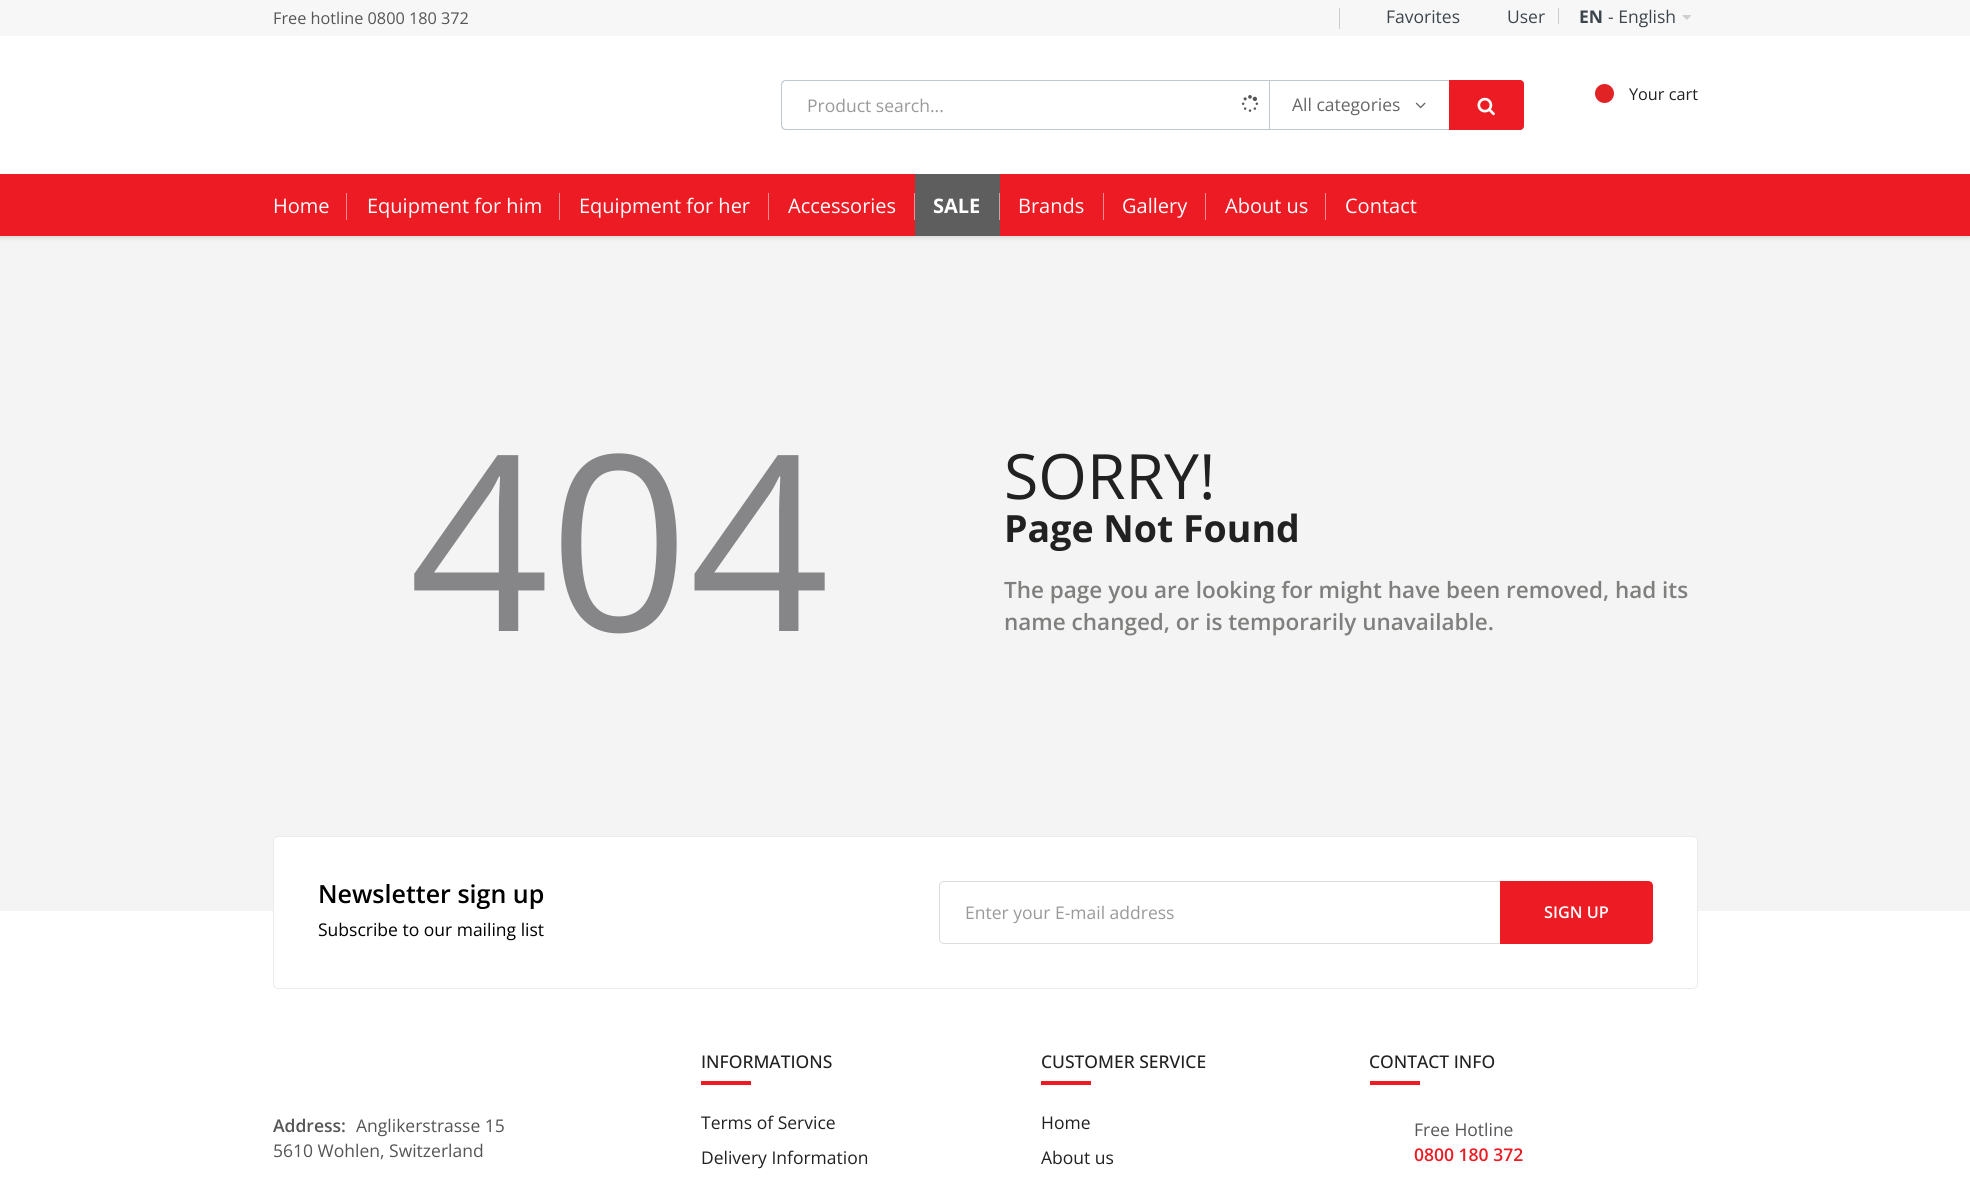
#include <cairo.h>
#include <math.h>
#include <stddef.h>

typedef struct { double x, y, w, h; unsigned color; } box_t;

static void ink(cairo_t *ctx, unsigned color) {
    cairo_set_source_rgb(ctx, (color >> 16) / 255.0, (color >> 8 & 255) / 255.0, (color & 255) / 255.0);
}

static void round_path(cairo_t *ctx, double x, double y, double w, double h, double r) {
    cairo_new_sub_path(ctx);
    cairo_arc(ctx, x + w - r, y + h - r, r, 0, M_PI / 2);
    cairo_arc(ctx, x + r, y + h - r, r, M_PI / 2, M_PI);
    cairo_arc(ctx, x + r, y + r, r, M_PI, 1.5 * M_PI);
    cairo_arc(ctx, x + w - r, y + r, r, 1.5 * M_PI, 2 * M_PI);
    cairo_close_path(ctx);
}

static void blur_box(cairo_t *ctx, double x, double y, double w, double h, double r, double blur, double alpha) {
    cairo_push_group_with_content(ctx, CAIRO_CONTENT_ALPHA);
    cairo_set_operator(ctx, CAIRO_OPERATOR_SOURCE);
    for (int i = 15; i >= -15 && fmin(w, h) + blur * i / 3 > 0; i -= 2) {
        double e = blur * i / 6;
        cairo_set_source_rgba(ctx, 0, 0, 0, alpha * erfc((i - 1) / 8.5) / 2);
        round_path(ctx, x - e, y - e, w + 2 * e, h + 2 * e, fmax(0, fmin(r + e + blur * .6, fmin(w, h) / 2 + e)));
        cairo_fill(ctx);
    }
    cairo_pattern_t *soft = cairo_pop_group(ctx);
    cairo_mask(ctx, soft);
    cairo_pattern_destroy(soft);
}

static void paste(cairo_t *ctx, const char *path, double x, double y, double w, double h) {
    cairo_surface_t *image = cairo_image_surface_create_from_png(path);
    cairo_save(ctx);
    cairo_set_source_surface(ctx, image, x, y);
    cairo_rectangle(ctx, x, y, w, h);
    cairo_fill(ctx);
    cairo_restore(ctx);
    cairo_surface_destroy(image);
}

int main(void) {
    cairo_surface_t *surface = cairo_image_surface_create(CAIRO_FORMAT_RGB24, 1970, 1178);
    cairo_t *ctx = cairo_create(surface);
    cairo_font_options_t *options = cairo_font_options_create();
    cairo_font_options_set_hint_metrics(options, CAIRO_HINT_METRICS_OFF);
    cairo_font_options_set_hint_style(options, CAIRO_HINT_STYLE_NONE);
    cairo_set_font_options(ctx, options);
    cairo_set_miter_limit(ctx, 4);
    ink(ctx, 0xF4F4F4);
    cairo_paint(ctx);
    ink(ctx, 0x000000);
    blur_box(ctx, 0, 0, 1970, 236, 0, 3, 0.2);
    ink(ctx, 0xFFFFFF);
    cairo_rectangle(ctx, 0, 36, 1970, 138);
    cairo_fill(ctx);
    ink(ctx, 0xF7F7F7);
    cairo_rectangle(ctx, 0, 0, 1970, 36);
    cairo_fill(ctx);
    cairo_select_font_face(ctx, "Open Sans", CAIRO_FONT_SLANT_NORMAL, CAIRO_FONT_WEIGHT_NORMAL);
    cairo_set_font_size(ctx, 16.25);
    ink(ctx, 0x555555);
    cairo_move_to(ctx, 273, 24);
    cairo_show_text(ctx, "Free hotline 0800 180 372");
    ink(ctx, 0xCCCCCC);
    cairo_rectangle(ctx, 1339, 8, 1, 21);
    cairo_fill(ctx);
    cairo_set_font_size(ctx, 17.5);
    ink(ctx, 0x3D464D);
    cairo_move_to(ctx, 1386, 23);
    cairo_show_text(ctx, "Favorites");
    cairo_move_to(ctx, 1507, 23);
    cairo_show_text(ctx, "User");
    ink(ctx, 0xCCCCCC);
    cairo_rectangle(ctx, 1558, 8, 1, 16);
    cairo_fill(ctx);
    cairo_select_font_face(ctx, "Open Sans", CAIRO_FONT_SLANT_NORMAL, CAIRO_FONT_WEIGHT_BOLD);
    ink(ctx, 0x3D464D);
    cairo_move_to(ctx, 1579, 23);
    cairo_show_text(ctx, "EN");
    cairo_select_font_face(ctx, "Open Sans", CAIRO_FONT_SLANT_NORMAL, CAIRO_FONT_WEIGHT_NORMAL);
    cairo_move_to(ctx, 1608, 23);
    cairo_show_text(ctx, "- English");
    paste(ctx, "media/1.png", 1682, 15, 9, 5);
    ink(ctx, 0xE12325);
    cairo_arc(ctx, 1604.5, 93.5, 9.5, 0, 2 * M_PI);
    cairo_fill(ctx);
    cairo_set_font_size(ctx, 16.25);
    ink(ctx, 0x212121);
    cairo_move_to(ctx, 1629, 100);
    cairo_show_text(ctx, "Your cart");
    ink(ctx, 0xBEC8CE);
    cairo_set_fill_rule(ctx, CAIRO_FILL_RULE_EVEN_ODD);
    cairo_new_path(ctx);
    cairo_move_to(ctx, 786, 80);
    cairo_line_to(ctx, 1269, 80);
    cairo_line_to(ctx, 1269, 130);
    cairo_line_to(ctx, 786, 130);
    cairo_curve_to(ctx, 783, 130, 781, 128, 781, 125);
    cairo_line_to(ctx, 781, 85);
    cairo_curve_to(ctx, 781, 82, 783, 80, 786, 80);
    cairo_close_path(ctx);
    cairo_move_to(ctx, 786, 81);
    cairo_line_to(ctx, 1269, 81);
    cairo_line_to(ctx, 1269, 129);
    cairo_line_to(ctx, 786, 129);
    cairo_curve_to(ctx, 784, 129, 782, 127, 782, 125);
    cairo_line_to(ctx, 782, 85);
    cairo_curve_to(ctx, 782, 83, 784, 81, 786, 81);
    cairo_close_path(ctx);
    cairo_fill(ctx);
    cairo_set_font_size(ctx, 17.5);
    ink(ctx, 0x999999);
    cairo_move_to(ctx, 807, 112);
    cairo_show_text(ctx, "Product search...");
    paste(ctx, "media/2.png", 1241, 95, 18, 17);
    {
        static const box_t items[] = {
            {1269, 80, 180, 1, 0xBEC8CE},
            {1269, 129, 180, 1, 0xBEC8CE},
            {1269, 80, 1, 50, 0xBEC8CE},
        };
        for (size_t i = 0; i < sizeof items / sizeof *items; i++) {
            ink(ctx, items[i].color);
            cairo_rectangle(ctx, items[i].x, items[i].y, items[i].w, items[i].h);
            cairo_fill(ctx);
        }
    }
    ink(ctx, 0x666666);
    cairo_move_to(ctx, 1292, 111);
    cairo_show_text(ctx, "All categories");
    paste(ctx, "media/3.png", 1415, 102, 11, 7);
    ink(ctx, 0xED1C24);
    cairo_new_path(ctx);
    cairo_move_to(ctx, 1449.5, 80.5);
    cairo_line_to(ctx, 1520, 80.5);
    cairo_curve_to(ctx, 1522, 80.5, 1523.5, 82, 1523.5, 84);
    cairo_line_to(ctx, 1523.5, 126);
    cairo_curve_to(ctx, 1523.5, 128, 1522, 129.5, 1520, 129.5);
    cairo_line_to(ctx, 1449.5, 129.5);
    cairo_close_path(ctx);
    cairo_fill_preserve(ctx);
    cairo_set_line_width(ctx, 1);
    cairo_stroke(ctx);
    paste(ctx, "media/4.png", 1477, 97, 18, 19);
    cairo_rectangle(ctx, 0, 174, 1970, 62);
    cairo_fill(ctx);
    cairo_set_font_size(ctx, 20);
    ink(ctx, 0xFFFFFF);
    cairo_move_to(ctx, 273, 213);
    cairo_show_text(ctx, "Home");
    ink(ctx, 0xF68E92);
    cairo_rectangle(ctx, 346, 193, 1, 27);
    cairo_fill(ctx);
    ink(ctx, 0xFFFFFF);
    cairo_move_to(ctx, 367, 213);
    cairo_show_text(ctx, "Equipment for him");
    ink(ctx, 0xF68E92);
    cairo_rectangle(ctx, 559, 193, 1, 27);
    cairo_fill(ctx);
    ink(ctx, 0xFFFFFF);
    cairo_move_to(ctx, 579, 213);
    cairo_show_text(ctx, "Equipment for her");
    ink(ctx, 0xF68E92);
    cairo_rectangle(ctx, 768, 193, 1, 27);
    cairo_fill(ctx);
    ink(ctx, 0xFFFFFF);
    cairo_move_to(ctx, 788, 213);
    cairo_show_text(ctx, "Accessories");
    ink(ctx, 0xF68E92);
    cairo_rectangle(ctx, 914, 193, 1, 27);
    cairo_fill(ctx);
    ink(ctx, 0x5E5E5E);
    cairo_rectangle(ctx, 915, 174, 85, 62);
    cairo_fill(ctx);
    cairo_select_font_face(ctx, "Open Sans", CAIRO_FONT_SLANT_NORMAL, CAIRO_FONT_WEIGHT_BOLD);
    ink(ctx, 0xFFFFFF);
    cairo_move_to(ctx, 933, 213);
    cairo_show_text(ctx, "SALE");
    ink(ctx, 0xAFAFAF);
    cairo_rectangle(ctx, 999, 193, 1, 27);
    cairo_fill(ctx);
    cairo_select_font_face(ctx, "Open Sans", CAIRO_FONT_SLANT_NORMAL, CAIRO_FONT_WEIGHT_NORMAL);
    ink(ctx, 0xFFFFFF);
    cairo_move_to(ctx, 1018, 213);
    cairo_show_text(ctx, "Brands");
    ink(ctx, 0xF68E92);
    cairo_rectangle(ctx, 1103, 193, 1, 27);
    cairo_fill(ctx);
    ink(ctx, 0xFFFFFF);
    cairo_move_to(ctx, 1122, 213);
    cairo_show_text(ctx, "Gallery");
    ink(ctx, 0xF68E92);
    cairo_rectangle(ctx, 1205, 193, 1, 27);
    cairo_fill(ctx);
    ink(ctx, 0xFFFFFF);
    cairo_move_to(ctx, 1225, 213);
    cairo_show_text(ctx, "About us");
    ink(ctx, 0xF68E92);
    cairo_rectangle(ctx, 1325, 193, 1, 27);
    cairo_fill(ctx);
    ink(ctx, 0xFFFFFF);
    cairo_move_to(ctx, 1345, 213);
    cairo_show_text(ctx, "Contact");
    cairo_set_font_size(ctx, 245);
    ink(ctx, 0x868688);
    cairo_move_to(ctx, 409, 631);
    cairo_show_text(ctx, "404");
    cairo_set_font_size(ctx, 62.5);
    ink(ctx, 0x212121);
    cairo_move_to(ctx, 1004, 499);
    cairo_show_text(ctx, "SORRY!");
    cairo_select_font_face(ctx, "Open Sans", CAIRO_FONT_SLANT_NORMAL, CAIRO_FONT_WEIGHT_BOLD);
    cairo_set_font_size(ctx, 37.5);
    cairo_move_to(ctx, 1004, 542);
    cairo_show_text(ctx, "Page Not Found");
    cairo_select_font_face(ctx, "Open Sans SemiBold", CAIRO_FONT_SLANT_NORMAL, CAIRO_FONT_WEIGHT_NORMAL);
    cairo_set_font_size(ctx, 22.5);
    ink(ctx, 0x807F7D);
    cairo_move_to(ctx, 1004, 598);
    cairo_show_text(ctx, "The page you are looking for might have been removed, had its");
    cairo_move_to(ctx, 1004, 630);
    cairo_show_text(ctx, "name changed, or is temporarily unavailable.");
    ink(ctx, 0xFFFFFF);
    cairo_rectangle(ctx, 0, 911, 1970, 267);
    cairo_fill(ctx);
    round_path(ctx, 273.5, 836.5, 1424, 152, 4.5);
    cairo_fill_preserve(ctx);
    ink(ctx, 0xEBEBEB);
    cairo_stroke(ctx);
    cairo_set_font_size(ctx, 25);
    ink(ctx, 0x000000);
    cairo_move_to(ctx, 318, 903);
    cairo_show_text(ctx, "Newsletter sign up");
    cairo_select_font_face(ctx, "Open Sans", CAIRO_FONT_SLANT_NORMAL, CAIRO_FONT_WEIGHT_NORMAL);
    cairo_set_font_size(ctx, 17.5);
    cairo_move_to(ctx, 318, 936);
    cairo_show_text(ctx, "Subscribe to our mailing list");
    cairo_new_path(ctx);
    cairo_move_to(ctx, 944, 881.5);
    cairo_line_to(ctx, 1500.5, 881.5);
    cairo_line_to(ctx, 1500.5, 943.5);
    cairo_line_to(ctx, 944, 943.5);
    cairo_curve_to(ctx, 941.5, 943.5, 939.5, 941.5, 939.5, 939);
    cairo_line_to(ctx, 939.5, 886);
    cairo_curve_to(ctx, 939.5, 883.5, 941.5, 881.5, 944, 881.5);
    cairo_close_path(ctx);
    ink(ctx, 0xDDDDDD);
    cairo_stroke(ctx);
    ink(ctx, 0x999999);
    cairo_move_to(ctx, 965, 919);
    cairo_show_text(ctx, "Enter your E-mail address");
    ink(ctx, 0xED1C24);
    cairo_new_path(ctx);
    cairo_move_to(ctx, 1500, 881);
    cairo_line_to(ctx, 1648, 881);
    cairo_curve_to(ctx, 1651, 881, 1653, 883, 1653, 886);
    cairo_line_to(ctx, 1653, 939);
    cairo_curve_to(ctx, 1653, 942, 1651, 944, 1648, 944);
    cairo_line_to(ctx, 1500, 944);
    cairo_close_path(ctx);
    cairo_fill(ctx);
    cairo_select_font_face(ctx, "Open Sans SemiBold", CAIRO_FONT_SLANT_NORMAL, CAIRO_FONT_WEIGHT_NORMAL);
    cairo_set_font_size(ctx, 16.25);
    ink(ctx, 0xFFFFFF);
    cairo_move_to(ctx, 1544, 918);
    cairo_show_text(ctx, "SIGN UP");
    cairo_set_font_size(ctx, 17.5);
    ink(ctx, 0x555555);
    cairo_move_to(ctx, 273, 1132);
    cairo_show_text(ctx, "Address:");
    cairo_select_font_face(ctx, "Open Sans", CAIRO_FONT_SLANT_NORMAL, CAIRO_FONT_WEIGHT_NORMAL);
    cairo_move_to(ctx, 356, 1132);
    cairo_show_text(ctx, "Anglikerstrasse 15");
    cairo_move_to(ctx, 273, 1157);
    cairo_show_text(ctx, "5610 Wohlen, Switzerland");
    cairo_select_font_face(ctx, "Open Sans Medium", CAIRO_FONT_SLANT_NORMAL, CAIRO_FONT_WEIGHT_NORMAL);
    ink(ctx, 0x212121);
    cairo_move_to(ctx, 701, 1068);
    cairo_show_text(ctx, "INFORMATIONS");
    ink(ctx, 0xED1C24);
    cairo_rectangle(ctx, 701, 1081, 50, 4);
    cairo_fill(ctx);
    cairo_select_font_face(ctx, "Open Sans", CAIRO_FONT_SLANT_NORMAL, CAIRO_FONT_WEIGHT_NORMAL);
    ink(ctx, 0x212121);
    cairo_move_to(ctx, 701, 1129);
    cairo_show_text(ctx, "Terms of Service");
    cairo_move_to(ctx, 701, 1164);
    cairo_show_text(ctx, "Delivery Information");
    cairo_select_font_face(ctx, "Open Sans Medium", CAIRO_FONT_SLANT_NORMAL, CAIRO_FONT_WEIGHT_NORMAL);
    cairo_move_to(ctx, 1041, 1068);
    cairo_show_text(ctx, "CUSTOMER SERVICE");
    ink(ctx, 0xED1C24);
    cairo_rectangle(ctx, 1041, 1081, 50, 4);
    cairo_fill(ctx);
    cairo_select_font_face(ctx, "Open Sans", CAIRO_FONT_SLANT_NORMAL, CAIRO_FONT_WEIGHT_NORMAL);
    ink(ctx, 0x212121);
    cairo_move_to(ctx, 1041, 1129);
    cairo_show_text(ctx, "Home");
    cairo_move_to(ctx, 1041, 1164);
    cairo_show_text(ctx, "About us");
    cairo_select_font_face(ctx, "Open Sans Medium", CAIRO_FONT_SLANT_NORMAL, CAIRO_FONT_WEIGHT_NORMAL);
    cairo_move_to(ctx, 1369, 1068);
    cairo_show_text(ctx, "CONTACT INFO");
    ink(ctx, 0xED1C24);
    cairo_rectangle(ctx, 1370, 1081, 50, 4);
    cairo_fill(ctx);
    cairo_select_font_face(ctx, "Open Sans", CAIRO_FONT_SLANT_NORMAL, CAIRO_FONT_WEIGHT_NORMAL);
    ink(ctx, 0x555555);
    cairo_move_to(ctx, 1414, 1136);
    cairo_show_text(ctx, "Free Hotline");
    cairo_select_font_face(ctx, "Open Sans SemiBold", CAIRO_FONT_SLANT_NORMAL, CAIRO_FONT_WEIGHT_NORMAL);
    ink(ctx, 0xED1C24);
    cairo_move_to(ctx, 1414, 1161);
    cairo_show_text(ctx, "0800 180 372");
    cairo_surface_write_to_png(surface, "image.png");
    cairo_font_options_destroy(options);
    cairo_destroy(ctx);
    cairo_surface_destroy(surface);
    return 0;
}
